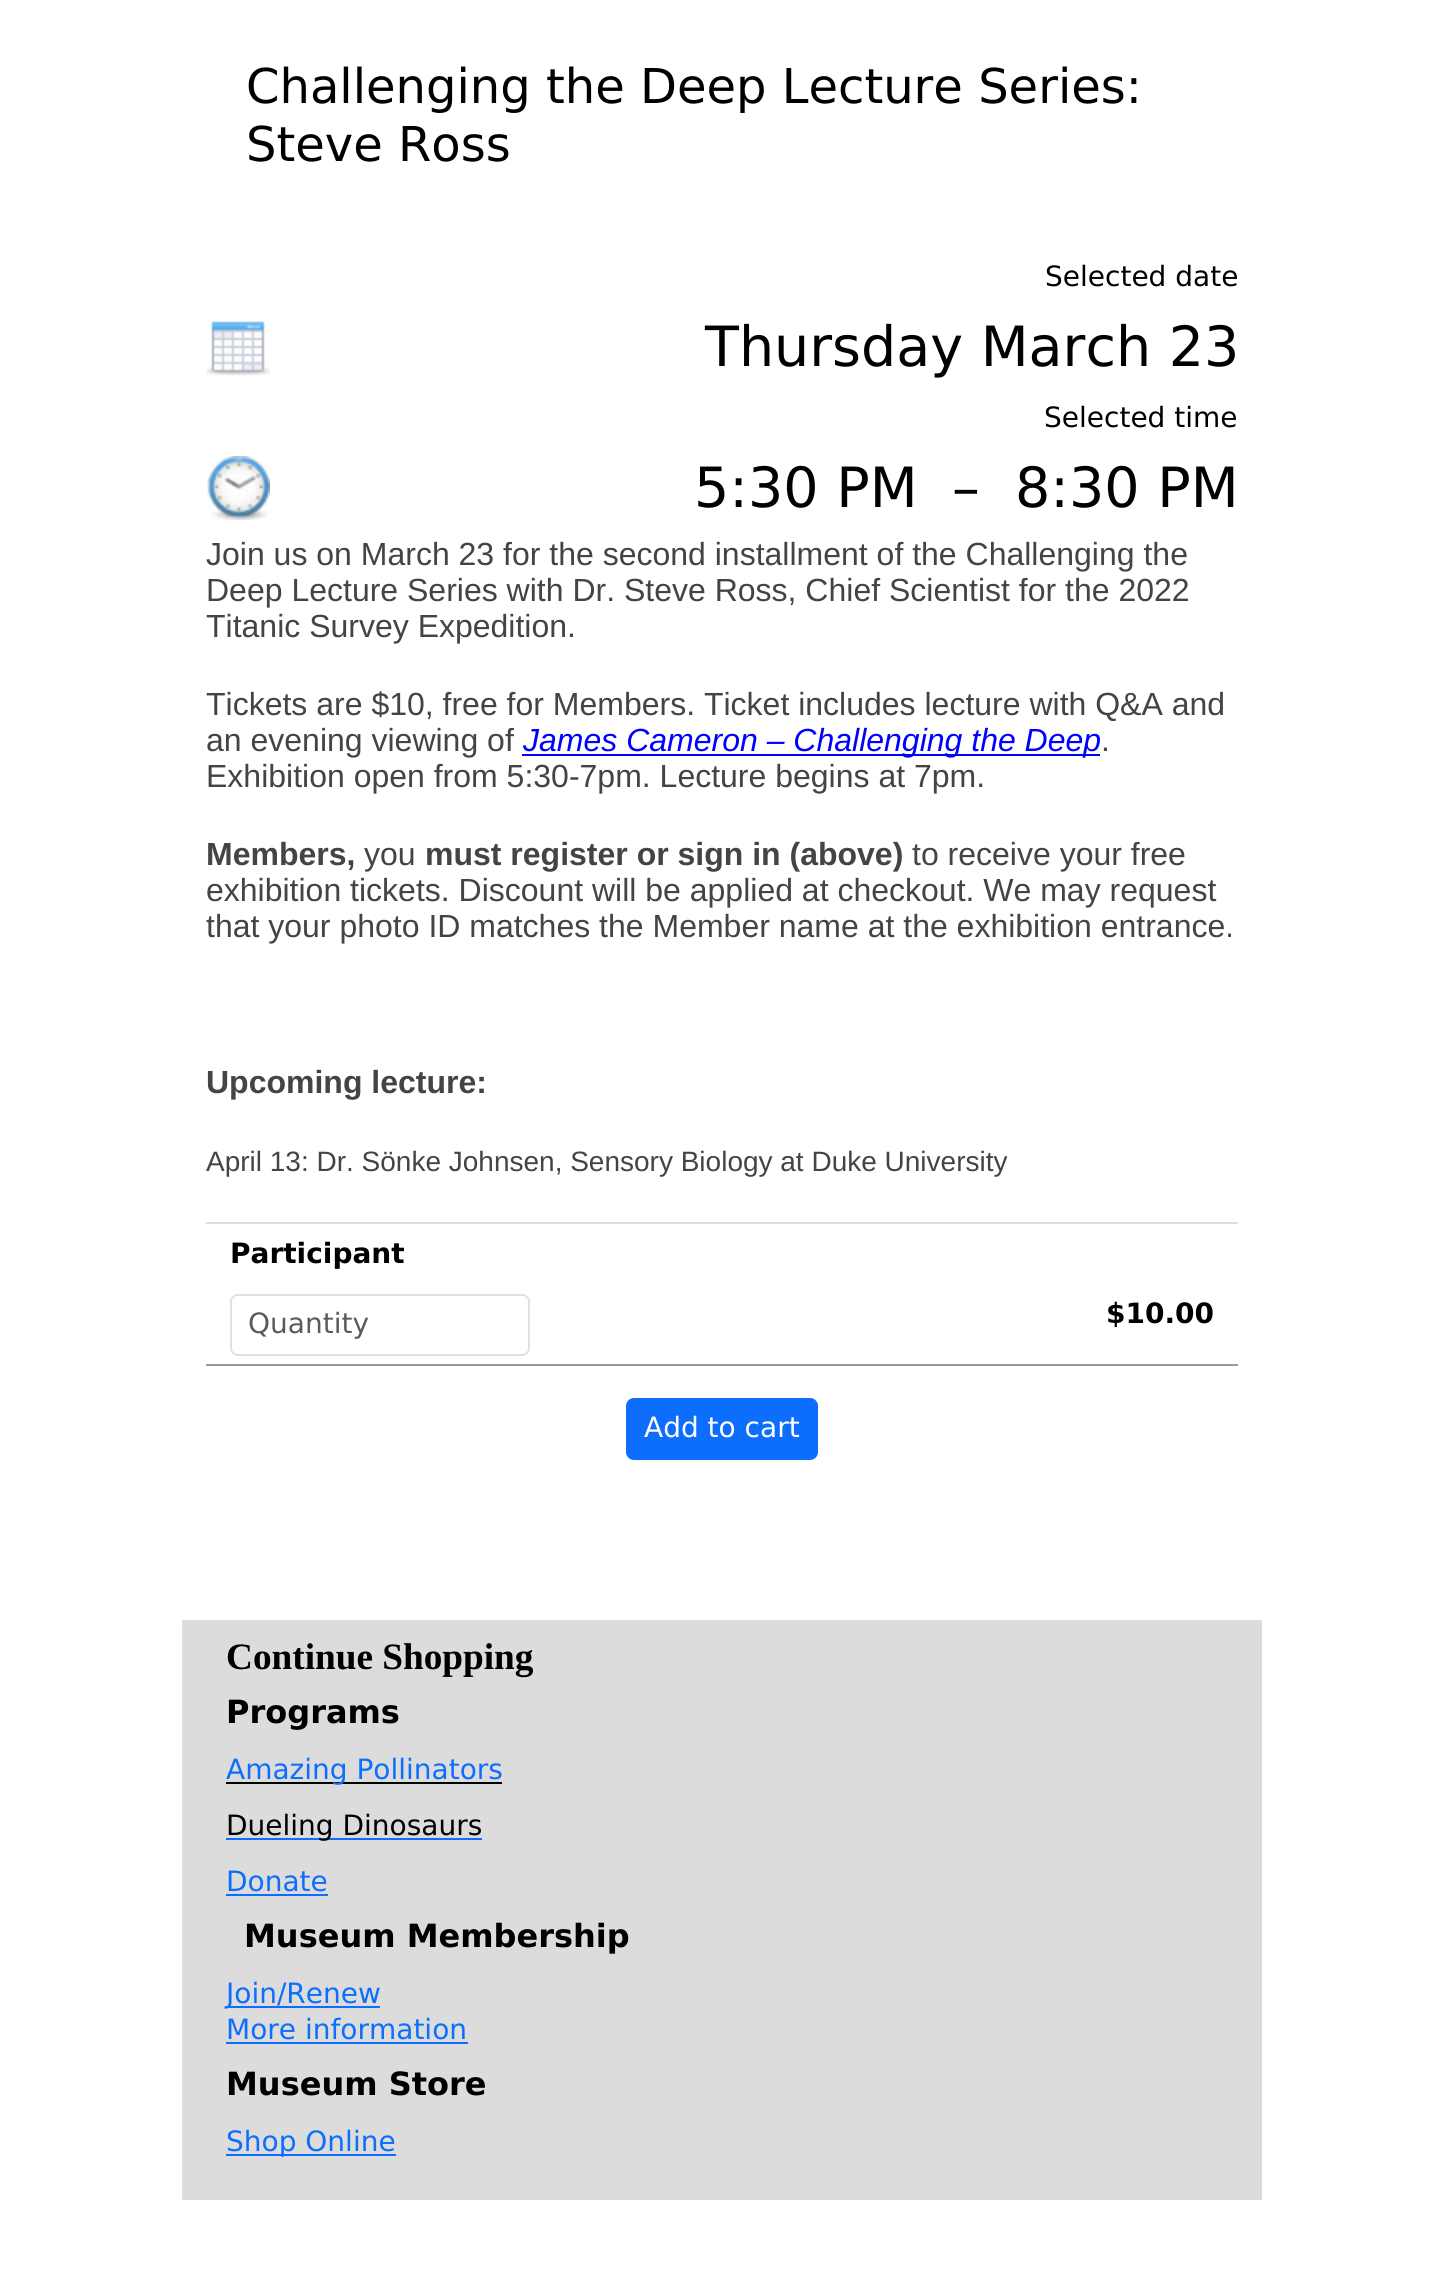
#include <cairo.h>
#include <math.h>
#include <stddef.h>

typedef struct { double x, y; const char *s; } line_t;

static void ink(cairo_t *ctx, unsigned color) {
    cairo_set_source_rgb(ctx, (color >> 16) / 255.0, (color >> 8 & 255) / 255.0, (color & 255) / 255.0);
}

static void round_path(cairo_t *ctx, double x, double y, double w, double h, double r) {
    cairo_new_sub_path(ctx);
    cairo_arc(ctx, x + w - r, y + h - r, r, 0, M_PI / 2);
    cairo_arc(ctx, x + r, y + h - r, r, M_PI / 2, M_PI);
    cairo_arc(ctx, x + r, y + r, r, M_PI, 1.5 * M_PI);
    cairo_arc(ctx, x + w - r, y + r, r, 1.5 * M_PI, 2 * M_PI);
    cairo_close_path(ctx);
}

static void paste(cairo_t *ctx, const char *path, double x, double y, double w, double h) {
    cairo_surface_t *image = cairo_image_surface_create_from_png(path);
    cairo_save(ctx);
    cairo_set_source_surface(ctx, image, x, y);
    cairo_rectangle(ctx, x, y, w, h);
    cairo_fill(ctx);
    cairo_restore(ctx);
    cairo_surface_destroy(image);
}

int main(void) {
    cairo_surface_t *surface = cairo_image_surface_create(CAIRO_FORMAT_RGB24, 1444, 2278);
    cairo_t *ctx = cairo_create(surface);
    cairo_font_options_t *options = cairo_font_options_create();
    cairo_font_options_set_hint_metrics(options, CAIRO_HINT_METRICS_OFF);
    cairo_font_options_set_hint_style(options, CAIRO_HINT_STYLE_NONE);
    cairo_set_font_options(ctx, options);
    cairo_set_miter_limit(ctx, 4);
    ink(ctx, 0xFFFFFF);
    cairo_paint(ctx);
    cairo_select_font_face(ctx, "DejaVu Sans", CAIRO_FONT_SLANT_NORMAL, CAIRO_FONT_WEIGHT_NORMAL);
    cairo_set_font_size(ctx, 48);
    ink(ctx, 0x000000);
    cairo_move_to(ctx, 246, 103);
    cairo_show_text(ctx, "Challenging the Deep Lecture Series:");
    cairo_move_to(ctx, 246, 161);
    cairo_show_text(ctx, "Steve Ross");
    cairo_set_font_size(ctx, 28);
    cairo_move_to(ctx, 1045, 286);
    cairo_show_text(ctx, "Selected date");
    paste(ctx, "media/1.png", 206, 321, 64, 55);
    cairo_set_font_size(ctx, 55.5);
    cairo_move_to(ctx, 705, 366);
    cairo_show_text(ctx, "Thursday March 23");
    cairo_set_font_size(ctx, 28);
    cairo_move_to(ctx, 1044, 427);
    cairo_show_text(ctx, "Selected time");
    paste(ctx, "media/2.png", 207, 456, 63, 64);
    cairo_set_font_size(ctx, 55.5);
    {
        static const line_t items[] = {
            {694, 507, "5:30 PM"},
            {952, 507, "–"},
            {1015, 507, "8:30 PM"},
        };
        for (size_t i = 0; i < sizeof items / sizeof *items; i++) {
            cairo_move_to(ctx, items[i].x, items[i].y);
            cairo_show_text(ctx, items[i].s);
        }
    }
    cairo_select_font_face(ctx, "Liberation Sans", CAIRO_FONT_SLANT_NORMAL, CAIRO_FONT_WEIGHT_NORMAL);
    cairo_set_font_size(ctx, 32);
    ink(ctx, 0x444444);
    {
        static const line_t items[] = {
            {206, 565, "Join us on March 23 for the second installment of the Challenging the"},
            {206, 601, "Deep Lecture Series with Dr. Steve Ross, Chief Scientist for the 2022"},
            {206, 637, "Titanic Survey Expedition."},
            {206, 715, "Tickets are $10, free for Members. Ticket includes lecture with Q&A and"},
            {206, 751, "an evening viewing of"},
        };
        for (size_t i = 0; i < sizeof items / sizeof *items; i++) {
            cairo_move_to(ctx, items[i].x, items[i].y);
            cairo_show_text(ctx, items[i].s);
        }
    }
    ink(ctx, 0x0000FF);
    cairo_rectangle(ctx, 522, 754, 578, 2);
    cairo_fill(ctx);
    cairo_select_font_face(ctx, "Liberation Sans", CAIRO_FONT_SLANT_ITALIC, CAIRO_FONT_WEIGHT_NORMAL);
    cairo_move_to(ctx, 523, 751);
    cairo_show_text(ctx, "James Cameron – Challenging the Deep");
    cairo_select_font_face(ctx, "Liberation Sans", CAIRO_FONT_SLANT_NORMAL, CAIRO_FONT_WEIGHT_NORMAL);
    ink(ctx, 0x444444);
    cairo_move_to(ctx, 1101, 751);
    cairo_show_text(ctx, ".");
    cairo_move_to(ctx, 206, 787);
    cairo_show_text(ctx, "Exhibition open from 5:30-7pm. Lecture begins at 7pm.");
    cairo_select_font_face(ctx, "Liberation Sans", CAIRO_FONT_SLANT_NORMAL, CAIRO_FONT_WEIGHT_BOLD);
    cairo_move_to(ctx, 206, 865);
    cairo_show_text(ctx, "Members,");
    cairo_select_font_face(ctx, "Liberation Sans", CAIRO_FONT_SLANT_NORMAL, CAIRO_FONT_WEIGHT_NORMAL);
    cairo_move_to(ctx, 364, 865);
    cairo_show_text(ctx, "you");
    cairo_select_font_face(ctx, "Liberation Sans", CAIRO_FONT_SLANT_NORMAL, CAIRO_FONT_WEIGHT_BOLD);
    cairo_move_to(ctx, 425, 865);
    cairo_show_text(ctx, "must register or sign in (above)");
    cairo_select_font_face(ctx, "Liberation Sans", CAIRO_FONT_SLANT_NORMAL, CAIRO_FONT_WEIGHT_NORMAL);
    {
        static const line_t items[] = {
            {912, 865, "to receive your free"},
            {206, 901, "exhibition tickets. Discount will be applied at checkout. We may request"},
            {206, 937, "that your photo ID matches the Member name at the exhibition entrance."},
        };
        for (size_t i = 0; i < sizeof items / sizeof *items; i++) {
            cairo_move_to(ctx, items[i].x, items[i].y);
            cairo_show_text(ctx, items[i].s);
        }
    }
    cairo_select_font_face(ctx, "Liberation Sans", CAIRO_FONT_SLANT_NORMAL, CAIRO_FONT_WEIGHT_BOLD);
    cairo_move_to(ctx, 206, 1093);
    cairo_show_text(ctx, "Upcoming lecture:");
    cairo_select_font_face(ctx, "Liberation Sans", CAIRO_FONT_SLANT_NORMAL, CAIRO_FONT_WEIGHT_NORMAL);
    cairo_set_font_size(ctx, 28);
    cairo_move_to(ctx, 206, 1171);
    cairo_show_text(ctx, "April 13: Dr. Sönke Johnsen, Sensory Biology at Duke University");
    ink(ctx, 0xDDDDDD);
    cairo_rectangle(ctx, 206, 1222, 1032, 2);
    cairo_fill(ctx);
    cairo_select_font_face(ctx, "DejaVu Sans", CAIRO_FONT_SLANT_NORMAL, CAIRO_FONT_WEIGHT_BOLD);
    ink(ctx, 0x000000);
    cairo_move_to(ctx, 230, 1263);
    cairo_show_text(ctx, "Participant");
    round_path(ctx, 231, 1295, 298, 60, 7);
    ink(ctx, 0xDEE2E6);
    cairo_stroke(ctx);
    cairo_select_font_face(ctx, "DejaVu Sans", CAIRO_FONT_SLANT_NORMAL, CAIRO_FONT_WEIGHT_NORMAL);
    ink(ctx, 0x595C5F);
    cairo_move_to(ctx, 248, 1333);
    cairo_show_text(ctx, "Quantity");
    cairo_select_font_face(ctx, "DejaVu Sans", CAIRO_FONT_SLANT_NORMAL, CAIRO_FONT_WEIGHT_BOLD);
    ink(ctx, 0x000000);
    cairo_move_to(ctx, 1106, 1323);
    cairo_show_text(ctx, "$10.00");
    ink(ctx, 0x999999);
    cairo_rectangle(ctx, 206, 1364, 1032, 2);
    cairo_fill(ctx);
    ink(ctx, 0x0D6EFD);
    round_path(ctx, 627, 1399, 190, 60, 7);
    cairo_fill_preserve(ctx);
    cairo_stroke(ctx);
    cairo_select_font_face(ctx, "DejaVu Sans", CAIRO_FONT_SLANT_NORMAL, CAIRO_FONT_WEIGHT_NORMAL);
    ink(ctx, 0xFFFFFF);
    cairo_move_to(ctx, 644, 1437);
    cairo_show_text(ctx, "Add to cart");
    ink(ctx, 0xDCDCDC);
    cairo_rectangle(ctx, 182, 1620, 1080, 580);
    cairo_fill(ctx);
    cairo_select_font_face(ctx, "Liberation Serif", CAIRO_FONT_SLANT_NORMAL, CAIRO_FONT_WEIGHT_BOLD);
    cairo_set_font_size(ctx, 37.25);
    ink(ctx, 0x000000);
    cairo_move_to(ctx, 226, 1669);
    cairo_show_text(ctx, "Continue Shopping");
    cairo_select_font_face(ctx, "DejaVu Sans", CAIRO_FONT_SLANT_NORMAL, CAIRO_FONT_WEIGHT_BOLD);
    cairo_set_font_size(ctx, 32);
    cairo_move_to(ctx, 226, 1723);
    cairo_show_text(ctx, "Programs");
    cairo_rectangle(ctx, 226, 1782, 276, 2);
    cairo_fill(ctx);
    cairo_select_font_face(ctx, "DejaVu Sans", CAIRO_FONT_SLANT_NORMAL, CAIRO_FONT_WEIGHT_NORMAL);
    cairo_set_font_size(ctx, 28);
    ink(ctx, 0x0D6EFD);
    cairo_move_to(ctx, 226, 1779);
    cairo_show_text(ctx, "Amazing Pollinators");
    cairo_rectangle(ctx, 226, 1838, 256, 2);
    cairo_fill(ctx);
    ink(ctx, 0x000000);
    cairo_move_to(ctx, 226, 1835);
    cairo_show_text(ctx, "Dueling Dinosaurs");
    ink(ctx, 0x0D6EFD);
    cairo_move_to(ctx, 226, 1891);
    cairo_show_text(ctx, "Donate");
    cairo_rectangle(ctx, 226, 1894, 102, 2);
    cairo_fill(ctx);
    cairo_select_font_face(ctx, "DejaVu Sans", CAIRO_FONT_SLANT_NORMAL, CAIRO_FONT_WEIGHT_BOLD);
    cairo_set_font_size(ctx, 32);
    ink(ctx, 0x000000);
    cairo_move_to(ctx, 244, 1947);
    cairo_show_text(ctx, "Museum Membership");
    ink(ctx, 0x0D6EFD);
    cairo_rectangle(ctx, 226, 2006, 154, 2);
    cairo_fill(ctx);
    cairo_select_font_face(ctx, "DejaVu Sans", CAIRO_FONT_SLANT_NORMAL, CAIRO_FONT_WEIGHT_NORMAL);
    cairo_set_font_size(ctx, 28);
    cairo_move_to(ctx, 226, 2003);
    cairo_show_text(ctx, "Join/Renew");
    cairo_move_to(ctx, 226, 2039);
    cairo_show_text(ctx, "More information");
    cairo_rectangle(ctx, 226, 2042, 242, 2);
    cairo_fill(ctx);
    cairo_select_font_face(ctx, "DejaVu Sans", CAIRO_FONT_SLANT_NORMAL, CAIRO_FONT_WEIGHT_BOLD);
    cairo_set_font_size(ctx, 32);
    ink(ctx, 0x000000);
    cairo_move_to(ctx, 226, 2095);
    cairo_show_text(ctx, "Museum Store");
    ink(ctx, 0x0D6EFD);
    cairo_rectangle(ctx, 226, 2154, 170, 2);
    cairo_fill(ctx);
    cairo_select_font_face(ctx, "DejaVu Sans", CAIRO_FONT_SLANT_NORMAL, CAIRO_FONT_WEIGHT_NORMAL);
    cairo_set_font_size(ctx, 28);
    cairo_move_to(ctx, 226, 2151);
    cairo_show_text(ctx, "Shop Online");
    cairo_surface_write_to_png(surface, "image.png");
    cairo_font_options_destroy(options);
    cairo_destroy(ctx);
    cairo_surface_destroy(surface);
    return 0;
}
